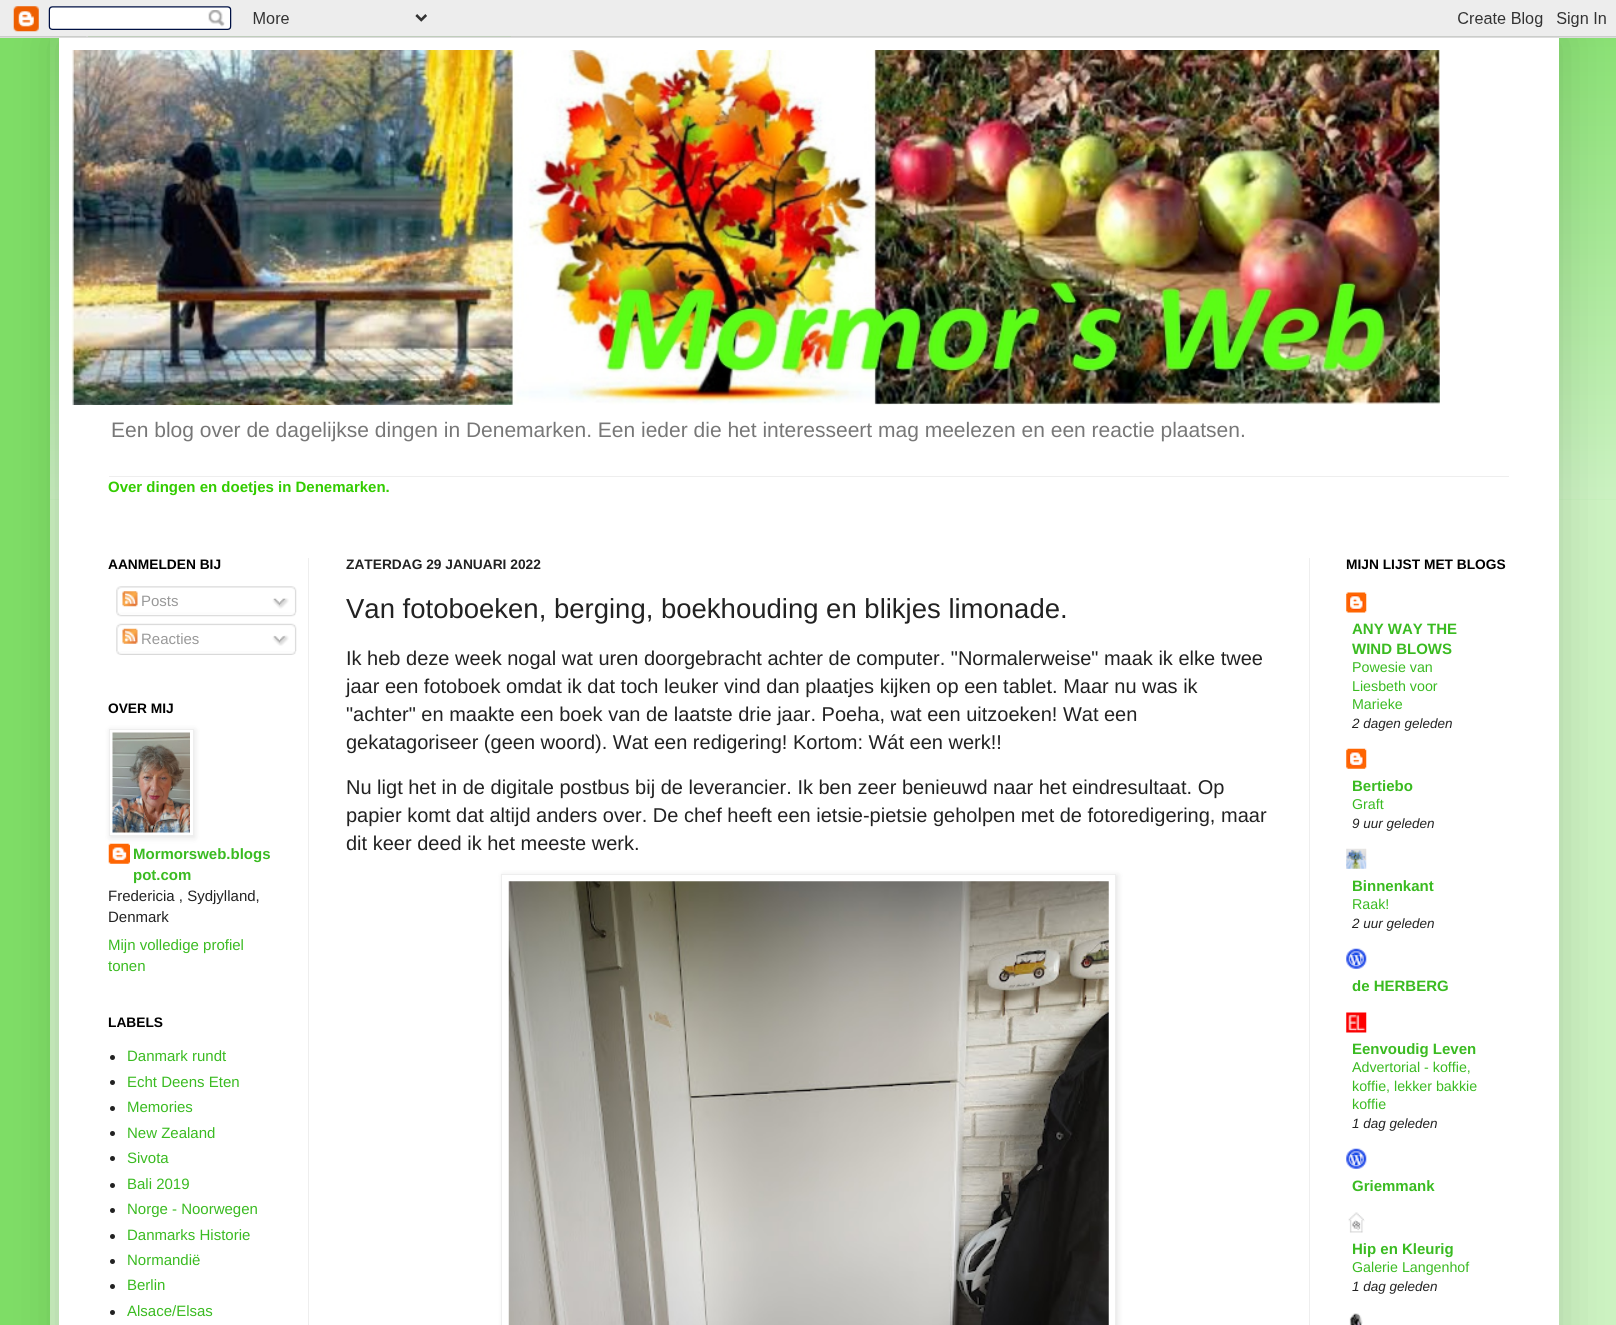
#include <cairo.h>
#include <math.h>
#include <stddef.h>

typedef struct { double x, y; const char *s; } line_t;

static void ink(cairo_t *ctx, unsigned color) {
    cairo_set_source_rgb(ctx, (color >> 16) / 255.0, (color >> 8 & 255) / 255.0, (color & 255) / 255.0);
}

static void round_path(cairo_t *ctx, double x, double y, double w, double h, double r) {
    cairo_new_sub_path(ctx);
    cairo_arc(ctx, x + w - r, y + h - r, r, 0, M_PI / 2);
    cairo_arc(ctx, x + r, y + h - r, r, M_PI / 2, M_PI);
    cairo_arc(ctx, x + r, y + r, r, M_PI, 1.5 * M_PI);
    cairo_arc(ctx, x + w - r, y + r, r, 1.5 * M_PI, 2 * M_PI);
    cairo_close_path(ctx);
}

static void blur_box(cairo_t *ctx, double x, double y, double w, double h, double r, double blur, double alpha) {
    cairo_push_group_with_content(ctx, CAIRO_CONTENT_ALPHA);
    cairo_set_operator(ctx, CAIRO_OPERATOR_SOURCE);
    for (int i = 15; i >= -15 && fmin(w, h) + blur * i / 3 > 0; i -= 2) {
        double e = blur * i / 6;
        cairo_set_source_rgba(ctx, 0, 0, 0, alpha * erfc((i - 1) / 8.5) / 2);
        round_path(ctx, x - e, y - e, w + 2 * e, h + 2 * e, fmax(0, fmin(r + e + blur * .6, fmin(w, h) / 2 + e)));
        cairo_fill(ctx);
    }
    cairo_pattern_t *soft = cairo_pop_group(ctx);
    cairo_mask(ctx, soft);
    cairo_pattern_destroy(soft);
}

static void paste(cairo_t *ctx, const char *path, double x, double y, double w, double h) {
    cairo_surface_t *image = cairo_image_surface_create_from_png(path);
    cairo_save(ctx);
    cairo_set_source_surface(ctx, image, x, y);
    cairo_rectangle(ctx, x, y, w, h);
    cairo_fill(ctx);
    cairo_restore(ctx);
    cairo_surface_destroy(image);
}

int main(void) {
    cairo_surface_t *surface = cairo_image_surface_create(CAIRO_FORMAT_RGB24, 1616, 1325);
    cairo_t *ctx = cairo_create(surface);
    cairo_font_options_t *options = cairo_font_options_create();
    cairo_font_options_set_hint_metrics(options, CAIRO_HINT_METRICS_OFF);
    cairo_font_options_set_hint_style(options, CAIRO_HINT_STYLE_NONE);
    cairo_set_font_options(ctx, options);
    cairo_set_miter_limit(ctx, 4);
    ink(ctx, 0x7EDD66);
    cairo_paint(ctx);
    paste(ctx, "media/2.png", 50, 36, 1566, 464);
    ink(ctx, 0xCCF2C1);
    cairo_rectangle(ctx, 50, 500, 1566, 825);
    cairo_fill(ctx);
    ink(ctx, 0x000000);
    blur_box(ctx, 59, 38, 1500, 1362, 0, 25, 0.15);
    paste(ctx, "media/1.png", 0, 0, 1616, 38);
    ink(ctx, 0xFFFFFF);
    cairo_rectangle(ctx, 59, 38, 1500, 1287);
    cairo_fill(ctx);
    paste(ctx, "media/3.png", 71, 50, 1369, 355);
    cairo_select_font_face(ctx, "Liberation Sans", CAIRO_FONT_SLANT_NORMAL, CAIRO_FONT_WEIGHT_NORMAL);
    cairo_set_font_size(ctx, 21);
    ink(ctx, 0x777777);
    cairo_move_to(ctx, 111, 437);
    cairo_show_text(ctx, "Een blog over de dagelijkse dingen in Denemarken. Een ieder die het interesseert mag meelezen en een reactie plaatsen.");
    ink(ctx, 0xEEEEEE);
    cairo_rectangle(ctx, 109, 476, 1400, 1);
    cairo_fill(ctx);
    cairo_select_font_face(ctx, "Liberation Sans", CAIRO_FONT_SLANT_NORMAL, CAIRO_FONT_WEIGHT_BOLD);
    cairo_set_font_size(ctx, 15);
    ink(ctx, 0x33CC00);
    cairo_move_to(ctx, 108, 492);
    cairo_show_text(ctx, "Over dingen en doetjes in Denemarken.");
    ink(ctx, 0xEEEEEE);
    cairo_rectangle(ctx, 308, 558, 1, 767);
    cairo_fill(ctx);
    cairo_rectangle(ctx, 1309, 558, 1, 767);
    cairo_fill(ctx);
    cairo_set_font_size(ctx, 13.75);
    ink(ctx, 0x000000);
    cairo_move_to(ctx, 108, 569);
    cairo_show_text(ctx, "AANMELDEN BIJ");
    paste(ctx, "media/4.png", 116, 586, 181, 27);
    paste(ctx, "media/5.png", 122, 591, 16, 16);
    cairo_select_font_face(ctx, "Liberation Sans", CAIRO_FONT_SLANT_NORMAL, CAIRO_FONT_WEIGHT_NORMAL);
    cairo_set_font_size(ctx, 15);
    ink(ctx, 0x999999);
    cairo_move_to(ctx, 141, 606);
    cairo_show_text(ctx, "Posts");
    paste(ctx, "media/6.png", 272, 598, 17, 11);
    paste(ctx, "media/7.png", 116, 612, 180, 5);
    paste(ctx, "media/8.png", 116, 623, 181, 29);
    paste(ctx, "media/9.png", 122, 628, 16, 16);
    cairo_move_to(ctx, 141, 644);
    cairo_show_text(ctx, "Reacties");
    paste(ctx, "media/10.png", 272, 635, 17, 11);
    paste(ctx, "media/11.png", 116, 651, 180, 4);
    cairo_select_font_face(ctx, "Liberation Sans", CAIRO_FONT_SLANT_NORMAL, CAIRO_FONT_WEIGHT_BOLD);
    cairo_set_font_size(ctx, 13.75);
    ink(ctx, 0x000000);
    cairo_move_to(ctx, 108, 713);
    cairo_show_text(ctx, "OVER MIJ");
    paste(ctx, "media/13.png", 108, 843, 22, 21);
    ink(ctx, 0x000000);
    blur_box(ctx, 110, 730, 85, 108, 0, 3, 0.1);
    ink(ctx, 0xFFFFFF);
    cairo_rectangle(ctx, 109.5, 729.5, 84, 106);
    cairo_fill_preserve(ctx);
    ink(ctx, 0xEEEEEE);
    cairo_set_line_width(ctx, 1);
    cairo_stroke(ctx);
    paste(ctx, "media/12.png", 112, 732, 78, 101);
    cairo_set_font_size(ctx, 15);
    ink(ctx, 0x3ABB21);
    cairo_move_to(ctx, 133, 859);
    cairo_show_text(ctx, "Mormorsweb.blogs");
    cairo_move_to(ctx, 133, 880);
    cairo_show_text(ctx, "pot.com");
    cairo_select_font_face(ctx, "Liberation Sans", CAIRO_FONT_SLANT_NORMAL, CAIRO_FONT_WEIGHT_NORMAL);
    ink(ctx, 0x222222);
    cairo_move_to(ctx, 108, 901);
    cairo_show_text(ctx, "Fredericia , Sydjylland,");
    cairo_move_to(ctx, 108, 922);
    cairo_show_text(ctx, "Denmark");
    ink(ctx, 0x3ABB21);
    cairo_move_to(ctx, 108, 950);
    cairo_show_text(ctx, "Mijn volledige profiel");
    cairo_move_to(ctx, 108, 971);
    cairo_show_text(ctx, "tonen");
    cairo_select_font_face(ctx, "Liberation Sans", CAIRO_FONT_SLANT_NORMAL, CAIRO_FONT_WEIGHT_BOLD);
    cairo_set_font_size(ctx, 13.75);
    ink(ctx, 0x000000);
    cairo_move_to(ctx, 108, 1027);
    cairo_show_text(ctx, "LABELS");
    ink(ctx, 0x222222);
    cairo_new_path(ctx);
    cairo_arc(ctx, 112.5, 1057.5, 2.5, 0, 2 * M_PI);
    cairo_fill(ctx);
    cairo_select_font_face(ctx, "Liberation Sans", CAIRO_FONT_SLANT_NORMAL, CAIRO_FONT_WEIGHT_NORMAL);
    cairo_set_font_size(ctx, 15);
    ink(ctx, 0x3ABB21);
    cairo_move_to(ctx, 127, 1061);
    cairo_show_text(ctx, "Danmark rundt");
    ink(ctx, 0x222222);
    cairo_new_path(ctx);
    cairo_arc(ctx, 112.5, 1082.5, 2.5, 0, 2 * M_PI);
    cairo_fill(ctx);
    ink(ctx, 0x3ABB21);
    cairo_move_to(ctx, 127, 1087);
    cairo_show_text(ctx, "Echt Deens Eten");
    ink(ctx, 0x222222);
    cairo_new_path(ctx);
    cairo_arc(ctx, 112.5, 1108.5, 2.5, 0, 2 * M_PI);
    cairo_fill(ctx);
    ink(ctx, 0x3ABB21);
    cairo_move_to(ctx, 127, 1112);
    cairo_show_text(ctx, "Memories");
    ink(ctx, 0x222222);
    cairo_new_path(ctx);
    cairo_arc(ctx, 112.5, 1133.5, 2.5, 0, 2 * M_PI);
    cairo_fill(ctx);
    ink(ctx, 0x3ABB21);
    cairo_move_to(ctx, 127, 1138);
    cairo_show_text(ctx, "New Zealand");
    ink(ctx, 0x222222);
    cairo_new_path(ctx);
    cairo_arc(ctx, 112.5, 1158.5, 2.5, 0, 2 * M_PI);
    cairo_fill(ctx);
    ink(ctx, 0x3ABB21);
    cairo_move_to(ctx, 127, 1163);
    cairo_show_text(ctx, "Sivota");
    ink(ctx, 0x222222);
    cairo_new_path(ctx);
    cairo_arc(ctx, 112.5, 1185.5, 2.5, 0, 2 * M_PI);
    cairo_fill(ctx);
    ink(ctx, 0x3ABB21);
    cairo_move_to(ctx, 127, 1189);
    cairo_show_text(ctx, "Bali 2019");
    ink(ctx, 0x222222);
    cairo_new_path(ctx);
    cairo_arc(ctx, 112.5, 1210.5, 2.5, 0, 2 * M_PI);
    cairo_fill(ctx);
    ink(ctx, 0x3ABB21);
    cairo_move_to(ctx, 127, 1214);
    cairo_show_text(ctx, "Norge - Noorwegen");
    ink(ctx, 0x222222);
    cairo_new_path(ctx);
    cairo_arc(ctx, 112.5, 1236.5, 2.5, 0, 2 * M_PI);
    cairo_fill(ctx);
    ink(ctx, 0x3ABB21);
    cairo_move_to(ctx, 127, 1240);
    cairo_show_text(ctx, "Danmarks Historie");
    ink(ctx, 0x222222);
    cairo_new_path(ctx);
    cairo_arc(ctx, 112.5, 1261.5, 2.5, 0, 2 * M_PI);
    cairo_fill(ctx);
    ink(ctx, 0x3ABB21);
    cairo_move_to(ctx, 127, 1265);
    cairo_show_text(ctx, "Normandië");
    ink(ctx, 0x222222);
    cairo_new_path(ctx);
    cairo_arc(ctx, 112.5, 1286.5, 2.5, 0, 2 * M_PI);
    cairo_fill(ctx);
    ink(ctx, 0x3ABB21);
    cairo_move_to(ctx, 127, 1290);
    cairo_show_text(ctx, "Berlin");
    ink(ctx, 0x222222);
    cairo_new_path(ctx);
    cairo_arc(ctx, 112.5, 1312.5, 2.5, 0, 2 * M_PI);
    cairo_fill(ctx);
    ink(ctx, 0x3ABB21);
    cairo_move_to(ctx, 127, 1316);
    cairo_show_text(ctx, "Alsace/Elsas");
    cairo_select_font_face(ctx, "Liberation Sans", CAIRO_FONT_SLANT_NORMAL, CAIRO_FONT_WEIGHT_BOLD);
    cairo_set_font_size(ctx, 13.75);
    ink(ctx, 0x222222);
    cairo_move_to(ctx, 346, 569);
    cairo_show_text(ctx, "ZATERDAG 29 JANUARI 2022");
    cairo_select_font_face(ctx, "Liberation Sans", CAIRO_FONT_SLANT_NORMAL, CAIRO_FONT_WEIGHT_NORMAL);
    cairo_set_font_size(ctx, 27.5);
    cairo_move_to(ctx, 346, 618);
    cairo_show_text(ctx, "Van fotoboeken, berging, boekhouding en blikjes limonade.");
    cairo_set_font_size(ctx, 20);
    {
        static const line_t items[] = {
            {346, 665, "Ik heb deze week nogal wat uren doorgebracht achter de computer. \"Normalerweise\" maak ik elke twee"},
            {346, 693, "jaar een fotoboek omdat ik dat toch leuker vind dan plaatjes kijken op een tablet. Maar nu was ik"},
            {346, 721, "\"achter\" en maakte een boek van de laatste drie jaar. Poeha, wat een uitzoeken! Wat een"},
            {346, 749, "gekatagoriseer (geen woord). Wat een redigering! Kortom: Wát een werk!!"},
            {346, 794, "Nu ligt het in de digitale postbus bij de leverancier. Ik ben zeer benieuwd naar het eindresultaat. Op"},
            {346, 822, "papier komt dat altijd anders over. De chef heeft een ietsie-pietsie geholpen met de fotoredigering, maar"},
            {346, 850, "dit keer deed ik het meeste werk."},
        };
        for (size_t i = 0; i < sizeof items / sizeof *items; i++) {
            cairo_move_to(ctx, items[i].x, items[i].y);
            cairo_show_text(ctx, items[i].s);
        }
    }
    ink(ctx, 0x000000);
    blur_box(ctx, 503, 875, 615, 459, 0, 3, 0.1);
    ink(ctx, 0xFFFFFF);
    cairo_rectangle(ctx, 501.5, 874.5, 614, 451);
    cairo_fill_preserve(ctx);
    ink(ctx, 0xEEEEEE);
    cairo_stroke(ctx);
    paste(ctx, "media/14.png", 508, 881, 601, 444);
    cairo_select_font_face(ctx, "Liberation Sans", CAIRO_FONT_SLANT_NORMAL, CAIRO_FONT_WEIGHT_BOLD);
    cairo_set_font_size(ctx, 13.75);
    ink(ctx, 0x000000);
    cairo_move_to(ctx, 1346, 569);
    cairo_show_text(ctx, "MIJN LIJST MET BLOGS");
    paste(ctx, "media/15.png", 1346, 592, 21, 21);
    cairo_set_font_size(ctx, 15);
    ink(ctx, 0x3ABB21);
    cairo_move_to(ctx, 1352, 634);
    cairo_show_text(ctx, "ANY WAY THE");
    cairo_move_to(ctx, 1352, 654);
    cairo_show_text(ctx, "WIND BLOWS");
    cairo_select_font_face(ctx, "Liberation Sans", CAIRO_FONT_SLANT_NORMAL, CAIRO_FONT_WEIGHT_NORMAL);
    cairo_set_font_size(ctx, 14.25);
    {
        static const line_t items[] = {
            {1352, 672, "Powesie van"},
            {1352, 691, "Liesbeth voor"},
            {1352, 709, "Marieke"},
        };
        for (size_t i = 0; i < sizeof items / sizeof *items; i++) {
            cairo_move_to(ctx, items[i].x, items[i].y);
            cairo_show_text(ctx, items[i].s);
        }
    }
    cairo_select_font_face(ctx, "Liberation Sans", CAIRO_FONT_SLANT_ITALIC, CAIRO_FONT_WEIGHT_NORMAL);
    cairo_set_font_size(ctx, 13.5);
    ink(ctx, 0x222222);
    cairo_move_to(ctx, 1352, 728);
    cairo_show_text(ctx, "2 dagen geleden");
    paste(ctx, "media/16.png", 1346, 748, 21, 21);
    cairo_select_font_face(ctx, "Liberation Sans", CAIRO_FONT_SLANT_NORMAL, CAIRO_FONT_WEIGHT_BOLD);
    cairo_set_font_size(ctx, 15);
    ink(ctx, 0x3ABB21);
    cairo_move_to(ctx, 1352, 791);
    cairo_show_text(ctx, "Bertiebo");
    cairo_select_font_face(ctx, "Liberation Sans", CAIRO_FONT_SLANT_NORMAL, CAIRO_FONT_WEIGHT_NORMAL);
    cairo_set_font_size(ctx, 14.25);
    cairo_move_to(ctx, 1352, 809);
    cairo_show_text(ctx, "Graft");
    cairo_select_font_face(ctx, "Liberation Sans", CAIRO_FONT_SLANT_ITALIC, CAIRO_FONT_WEIGHT_NORMAL);
    cairo_set_font_size(ctx, 13.5);
    ink(ctx, 0x222222);
    cairo_move_to(ctx, 1352, 828);
    cairo_show_text(ctx, "9 uur geleden");
    paste(ctx, "media/17.png", 1346, 848, 21, 21);
    cairo_select_font_face(ctx, "Liberation Sans", CAIRO_FONT_SLANT_NORMAL, CAIRO_FONT_WEIGHT_BOLD);
    cairo_set_font_size(ctx, 15);
    ink(ctx, 0x3ABB21);
    cairo_move_to(ctx, 1352, 891);
    cairo_show_text(ctx, "Binnenkant");
    cairo_select_font_face(ctx, "Liberation Sans", CAIRO_FONT_SLANT_NORMAL, CAIRO_FONT_WEIGHT_NORMAL);
    cairo_set_font_size(ctx, 14.25);
    cairo_move_to(ctx, 1352, 909);
    cairo_show_text(ctx, "Raak!");
    cairo_select_font_face(ctx, "Liberation Sans", CAIRO_FONT_SLANT_ITALIC, CAIRO_FONT_WEIGHT_NORMAL);
    cairo_set_font_size(ctx, 13.5);
    ink(ctx, 0x222222);
    cairo_move_to(ctx, 1352, 928);
    cairo_show_text(ctx, "2 uur geleden");
    paste(ctx, "media/18.png", 1346, 948, 21, 21);
    cairo_select_font_face(ctx, "Liberation Sans", CAIRO_FONT_SLANT_NORMAL, CAIRO_FONT_WEIGHT_BOLD);
    cairo_set_font_size(ctx, 15);
    ink(ctx, 0x3ABB21);
    cairo_move_to(ctx, 1352, 991);
    cairo_show_text(ctx, "de HERBERG");
    paste(ctx, "media/19.png", 1346, 1012, 21, 21);
    cairo_move_to(ctx, 1352, 1054);
    cairo_show_text(ctx, "Eenvoudig Leven");
    cairo_select_font_face(ctx, "Liberation Sans", CAIRO_FONT_SLANT_NORMAL, CAIRO_FONT_WEIGHT_NORMAL);
    cairo_set_font_size(ctx, 14.25);
    {
        static const line_t items[] = {
            {1352, 1072, "Advertorial - koffie,"},
            {1352, 1091, "koffie, lekker bakkie"},
            {1352, 1109, "koffie"},
        };
        for (size_t i = 0; i < sizeof items / sizeof *items; i++) {
            cairo_move_to(ctx, items[i].x, items[i].y);
            cairo_show_text(ctx, items[i].s);
        }
    }
    cairo_select_font_face(ctx, "Liberation Sans", CAIRO_FONT_SLANT_ITALIC, CAIRO_FONT_WEIGHT_NORMAL);
    cairo_set_font_size(ctx, 13.5);
    ink(ctx, 0x222222);
    cairo_move_to(ctx, 1352, 1128);
    cairo_show_text(ctx, "1 dag geleden");
    paste(ctx, "media/18.png", 1346, 1148, 21, 21);
    cairo_select_font_face(ctx, "Liberation Sans", CAIRO_FONT_SLANT_NORMAL, CAIRO_FONT_WEIGHT_BOLD);
    cairo_set_font_size(ctx, 15);
    ink(ctx, 0x3ABB21);
    cairo_move_to(ctx, 1352, 1191);
    cairo_show_text(ctx, "Griemmank");
    paste(ctx, "media/20.png", 1348, 1212, 17, 21);
    cairo_move_to(ctx, 1352, 1254);
    cairo_show_text(ctx, "Hip en Kleurig");
    cairo_select_font_face(ctx, "Liberation Sans", CAIRO_FONT_SLANT_NORMAL, CAIRO_FONT_WEIGHT_NORMAL);
    cairo_set_font_size(ctx, 14.25);
    cairo_move_to(ctx, 1352, 1272);
    cairo_show_text(ctx, "Galerie Langenhof");
    cairo_select_font_face(ctx, "Liberation Sans", CAIRO_FONT_SLANT_ITALIC, CAIRO_FONT_WEIGHT_NORMAL);
    cairo_set_font_size(ctx, 13.5);
    ink(ctx, 0x222222);
    cairo_move_to(ctx, 1352, 1291);
    cairo_show_text(ctx, "1 dag geleden");
    paste(ctx, "media/21.png", 1349, 1313, 14, 12);
    cairo_surface_write_to_png(surface, "image.png");
    cairo_font_options_destroy(options);
    cairo_destroy(ctx);
    cairo_surface_destroy(surface);
    return 0;
}
